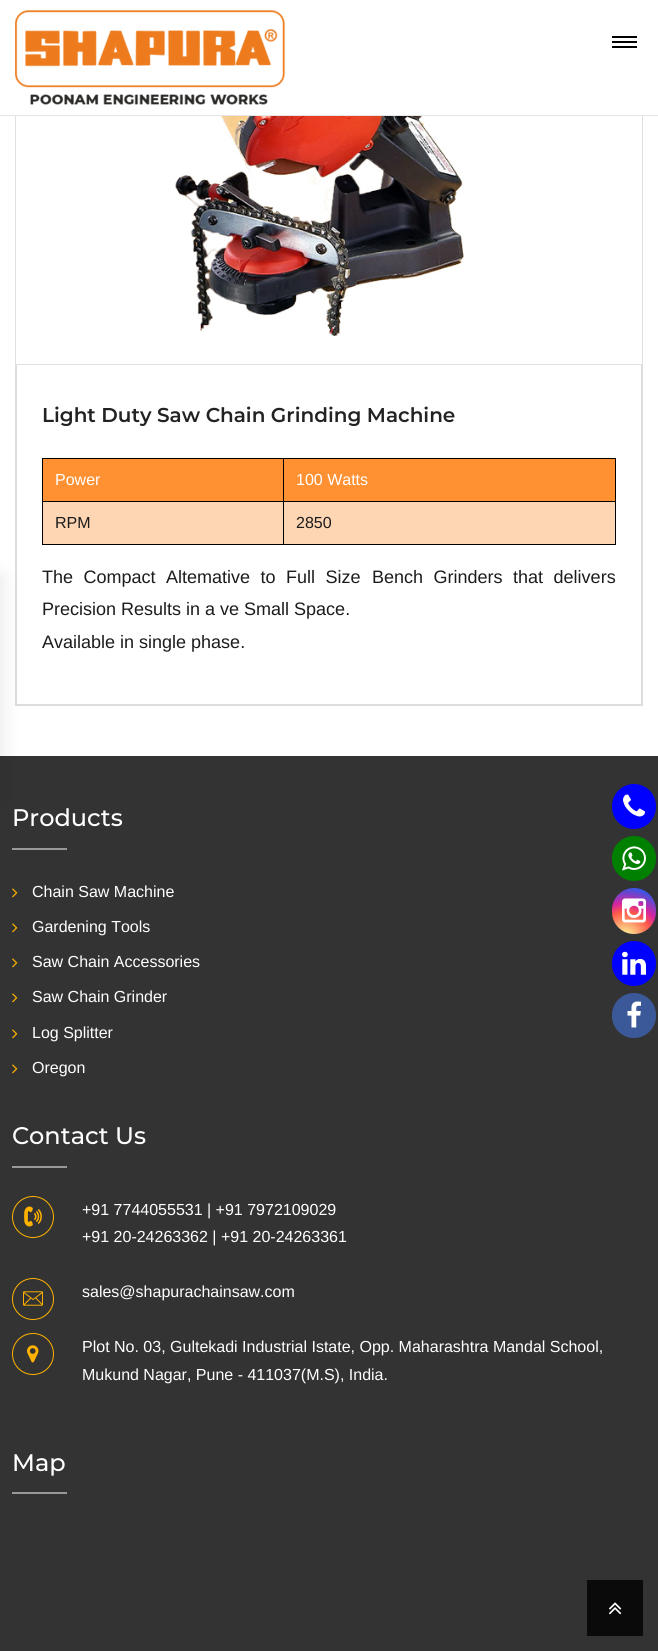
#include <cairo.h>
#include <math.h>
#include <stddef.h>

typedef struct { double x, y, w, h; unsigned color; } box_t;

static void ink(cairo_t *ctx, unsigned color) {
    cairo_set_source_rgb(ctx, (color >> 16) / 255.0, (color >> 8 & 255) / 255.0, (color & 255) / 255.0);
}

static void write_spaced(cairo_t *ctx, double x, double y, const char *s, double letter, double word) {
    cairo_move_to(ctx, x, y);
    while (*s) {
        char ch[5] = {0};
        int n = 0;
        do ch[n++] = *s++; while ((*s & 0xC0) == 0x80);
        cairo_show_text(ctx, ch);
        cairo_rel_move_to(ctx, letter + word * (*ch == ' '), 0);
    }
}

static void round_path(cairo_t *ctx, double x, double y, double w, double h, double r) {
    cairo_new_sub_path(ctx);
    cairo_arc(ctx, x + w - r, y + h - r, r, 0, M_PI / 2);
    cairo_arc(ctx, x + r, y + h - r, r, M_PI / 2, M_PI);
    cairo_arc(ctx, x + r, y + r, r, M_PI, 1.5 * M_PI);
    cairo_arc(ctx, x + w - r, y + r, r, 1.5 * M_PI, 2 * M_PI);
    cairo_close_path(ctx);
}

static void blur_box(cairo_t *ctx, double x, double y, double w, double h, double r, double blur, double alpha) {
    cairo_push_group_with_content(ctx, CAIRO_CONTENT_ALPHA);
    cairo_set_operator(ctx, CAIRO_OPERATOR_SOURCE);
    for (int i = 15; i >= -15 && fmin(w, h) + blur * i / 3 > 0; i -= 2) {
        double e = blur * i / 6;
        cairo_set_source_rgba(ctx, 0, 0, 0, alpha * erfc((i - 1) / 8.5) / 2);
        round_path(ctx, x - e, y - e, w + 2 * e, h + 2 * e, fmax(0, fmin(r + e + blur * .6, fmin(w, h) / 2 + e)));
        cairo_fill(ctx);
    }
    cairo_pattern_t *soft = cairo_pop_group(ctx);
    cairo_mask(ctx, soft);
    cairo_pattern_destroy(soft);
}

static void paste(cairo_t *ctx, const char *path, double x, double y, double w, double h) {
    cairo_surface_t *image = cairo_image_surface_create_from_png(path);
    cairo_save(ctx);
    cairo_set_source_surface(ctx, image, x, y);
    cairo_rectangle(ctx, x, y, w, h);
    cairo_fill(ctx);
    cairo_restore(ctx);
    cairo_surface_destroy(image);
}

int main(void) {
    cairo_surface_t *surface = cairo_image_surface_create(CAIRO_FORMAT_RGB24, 658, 1651);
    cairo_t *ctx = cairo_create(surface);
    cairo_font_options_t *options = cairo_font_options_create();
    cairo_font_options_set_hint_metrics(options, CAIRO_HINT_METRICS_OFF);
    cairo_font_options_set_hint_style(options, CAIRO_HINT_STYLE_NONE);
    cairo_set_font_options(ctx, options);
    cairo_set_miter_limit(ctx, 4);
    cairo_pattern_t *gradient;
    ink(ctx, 0xFFFFFF);
    cairo_paint(ctx);
    cairo_rectangle(ctx, 15.5, -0.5, 627, 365);
    ink(ctx, 0xDEE2E6);
    cairo_set_line_width(ctx, 1);
    cairo_stroke(ctx);
    ink(ctx, 0xFFFFFF);
    cairo_rectangle(ctx, 15, 0, 628, 115);
    cairo_fill(ctx);
    ink(ctx, 0xE6E6E6);
    cairo_rectangle(ctx, 0, 115, 658, 1);
    cairo_fill(ctx);
    paste(ctx, "media/1.png", 15, 10, 270, 95);
    {
        static const box_t items[] = {
            {612, 36, 25, 2, 0x000000},
            {612, 41, 25, 2, 0x000000},
            {612, 46, 25, 2, 0x000000},
        };
        for (size_t i = 0; i < sizeof items / sizeof *items; i++) {
            ink(ctx, items[i].color);
            cairo_rectangle(ctx, items[i].x, items[i].y, items[i].w, items[i].h);
            cairo_fill(ctx);
        }
    }
    paste(ctx, "media/2.png", 175, 116, 289, 220);
    {
        static const box_t items[] = {
            {641, 365, 2, 341, 0xDDDDDD},
            {15, 704, 628, 2, 0xDDDDDD},
            {15, 365, 2, 341, 0xDDDDDD},
        };
        for (size_t i = 0; i < sizeof items / sizeof *items; i++) {
            ink(ctx, items[i].color);
            cairo_rectangle(ctx, items[i].x, items[i].y, items[i].w, items[i].h);
            cairo_fill(ctx);
        }
    }
    cairo_select_font_face(ctx, "Montserrat SemiBold", CAIRO_FONT_SLANT_NORMAL, CAIRO_FONT_WEIGHT_NORMAL);
    cairo_set_font_size(ctx, 20);
    ink(ctx, 0x222222);
    cairo_move_to(ctx, 42, 422);
    cairo_show_text(ctx, "Light Duty Saw Chain Grinding Machine");
    {
        static const box_t items[] = {
            {43, 459, 572, 42, 0xFF9133},
            {283, 458, 333, 1, 0x000000},
            {283, 501, 333, 1, 0x000000},
            {43, 502, 572, 42, 0xFFD6B3},
            {615, 501, 1, 44, 0x000000},
            {283, 544, 333, 1, 0x000000},
            {283, 501, 1, 44, 0x000000},
            {42, 501, 242, 1, 0x000000},
            {283, 458, 1, 44, 0x000000},
            {42, 458, 242, 1, 0x000000},
            {42, 544, 242, 1, 0x000000},
            {42, 501, 1, 44, 0x000000},
            {42, 458, 1, 44, 0x000000},
        };
        for (size_t i = 0; i < sizeof items / sizeof *items; i++) {
            ink(ctx, items[i].color);
            cairo_rectangle(ctx, items[i].x, items[i].y, items[i].w, items[i].h);
            cairo_fill(ctx);
        }
    }
    cairo_select_font_face(ctx, "Arimo", CAIRO_FONT_SLANT_NORMAL, CAIRO_FONT_WEIGHT_NORMAL);
    cairo_set_font_size(ctx, 16);
    ink(ctx, 0xFFFFFF);
    cairo_move_to(ctx, 55, 485);
    cairo_show_text(ctx, "Power");
    ink(ctx, 0x000000);
    cairo_rectangle(ctx, 615, 458, 1, 44);
    cairo_fill(ctx);
    ink(ctx, 0xFFFFFF);
    cairo_move_to(ctx, 296, 485);
    cairo_show_text(ctx, "100 Watts");
    ink(ctx, 0x1C1C1C);
    cairo_move_to(ctx, 55, 528);
    cairo_show_text(ctx, "RPM");
    cairo_move_to(ctx, 296, 528);
    cairo_show_text(ctx, "2850");
    cairo_set_font_size(ctx, 18);
    write_spaced(ctx, 42, 583, "The Compact Altemative to Full Size", 0, 5.5);
    write_spaced(ctx, 372, 583, "Bench Grinders that delivers", 0, 5.5);
    cairo_move_to(ctx, 42, 615);
    cairo_show_text(ctx, "Precision Results in a ve Small Space.");
    cairo_move_to(ctx, 42, 648);
    cairo_show_text(ctx, "Available in single phase.");
    ink(ctx, 0x333333);
    cairo_rectangle(ctx, 0, 756, 658, 895);
    cairo_fill(ctx);
    cairo_select_font_face(ctx, "Montserrat Medium", CAIRO_FONT_SLANT_NORMAL, CAIRO_FONT_WEIGHT_NORMAL);
    cairo_set_font_size(ctx, 24);
    ink(ctx, 0xFFFFFF);
    cairo_move_to(ctx, 12, 826);
    cairo_show_text(ctx, "Products");
    ink(ctx, 0x999999);
    cairo_rectangle(ctx, 12, 848, 55, 2);
    cairo_fill(ctx);
    paste(ctx, "media/3.png", 12, 888, 6, 10);
    cairo_select_font_face(ctx, "Arimo", CAIRO_FONT_SLANT_NORMAL, CAIRO_FONT_WEIGHT_NORMAL);
    cairo_set_font_size(ctx, 16);
    ink(ctx, 0xFFFFFF);
    cairo_move_to(ctx, 32, 897);
    cairo_show_text(ctx, "Chain Saw Machine");
    paste(ctx, "media/3.png", 12, 923, 6, 10);
    cairo_move_to(ctx, 32, 932);
    cairo_show_text(ctx, "Gardening Tools");
    paste(ctx, "media/3.png", 12, 958, 6, 10);
    cairo_move_to(ctx, 32, 967);
    cairo_show_text(ctx, "Saw Chain Accessories");
    paste(ctx, "media/3.png", 12, 993, 6, 10);
    cairo_move_to(ctx, 32, 1002);
    cairo_show_text(ctx, "Saw Chain Grinder");
    paste(ctx, "media/3.png", 12, 1029, 6, 10);
    cairo_move_to(ctx, 32, 1038);
    cairo_show_text(ctx, "Log Splitter");
    paste(ctx, "media/3.png", 12, 1064, 6, 10);
    cairo_move_to(ctx, 32, 1073);
    cairo_show_text(ctx, "Oregon");
    cairo_select_font_face(ctx, "Montserrat Medium", CAIRO_FONT_SLANT_NORMAL, CAIRO_FONT_WEIGHT_NORMAL);
    cairo_set_font_size(ctx, 24);
    cairo_move_to(ctx, 12, 1144);
    cairo_show_text(ctx, "Contact Us");
    ink(ctx, 0x999999);
    cairo_rectangle(ctx, 12, 1166, 55, 2);
    cairo_fill(ctx);
    cairo_arc(ctx, 33, 1217, 20.5, 0, 2 * M_PI);
    ink(ctx, 0xFFB200);
    cairo_stroke(ctx);
    paste(ctx, "media/4.png", 24, 1206, 18, 21);
    cairo_select_font_face(ctx, "Arimo", CAIRO_FONT_SLANT_NORMAL, CAIRO_FONT_WEIGHT_NORMAL);
    cairo_set_font_size(ctx, 16);
    ink(ctx, 0xFFFFFF);
    cairo_move_to(ctx, 82, 1215);
    cairo_show_text(ctx, "+91 7744055531 | +91 7972109029");
    cairo_move_to(ctx, 82, 1242);
    cairo_show_text(ctx, "+91 20-24263362 | +91 20-24263361");
    cairo_new_path(ctx);
    cairo_arc(ctx, 33, 1299, 20.5, 0, 2 * M_PI);
    ink(ctx, 0xFFB200);
    cairo_stroke(ctx);
    paste(ctx, "media/5.png", 23, 1291, 20, 15);
    ink(ctx, 0xFFFFFF);
    cairo_move_to(ctx, 82, 1297);
    cairo_show_text(ctx, "sales@shapurachainsaw.com");
    cairo_new_path(ctx);
    cairo_arc(ctx, 33, 1354, 20.5, 0, 2 * M_PI);
    ink(ctx, 0xFFB200);
    cairo_stroke(ctx);
    paste(ctx, "media/6.png", 27, 1345, 12, 18);
    ink(ctx, 0xFFFFFF);
    cairo_move_to(ctx, 82, 1352);
    cairo_show_text(ctx, "Plot No. 03, Gultekadi Industrial Istate, Opp. Maharashtra Mandal School,");
    cairo_move_to(ctx, 82, 1380);
    cairo_show_text(ctx, "Mukund Nagar, Pune - 411037(M.S), India.");
    cairo_select_font_face(ctx, "Montserrat Medium", CAIRO_FONT_SLANT_NORMAL, CAIRO_FONT_WEIGHT_NORMAL);
    cairo_set_font_size(ctx, 24);
    cairo_move_to(ctx, 12, 1471);
    cairo_show_text(ctx, "Map");
    ink(ctx, 0x999999);
    cairo_rectangle(ctx, 12, 1492, 55, 2);
    cairo_fill(ctx);
    ink(ctx, 0x0000FF);
    round_path(ctx, 612, 784, 44, 45, 22);
    cairo_fill(ctx);
    paste(ctx, "media/7.png", 623, 794, 22, 23);
    ink(ctx, 0x008000);
    round_path(ctx, 612, 836, 44, 45, 22);
    cairo_fill(ctx);
    paste(ctx, "media/8.png", 622, 846, 24, 25);
    gradient = cairo_pattern_create_radial(625, 938, 0, 625, 938, 58);
    cairo_pattern_add_color_stop_rgba(gradient, 0, 0.992, 0.957, 0.592, 1);
    cairo_pattern_add_color_stop_rgba(gradient, 0.05, 0.992, 0.957, 0.592, 1);
    cairo_pattern_add_color_stop_rgba(gradient, 0.45, 0.992, 0.349, 0.286, 1);
    cairo_pattern_add_color_stop_rgba(gradient, 0.6, 0.839, 0.141, 0.624, 1);
    cairo_pattern_add_color_stop_rgba(gradient, 0.9, 0.157, 0.353, 0.922, 1);
    cairo_set_source(ctx, gradient);
    cairo_pattern_destroy(gradient);
    round_path(ctx, 612, 888, 44, 46, 22);
    cairo_fill(ctx);
    paste(ctx, "media/9.png", 622, 898, 24, 25);
    ink(ctx, 0x0000FF);
    round_path(ctx, 612, 941, 44, 45, 22);
    cairo_fill(ctx);
    paste(ctx, "media/10.png", 622, 951, 24, 24);
    ink(ctx, 0x3B5998);
    round_path(ctx, 612, 993, 44, 45, 22);
    cairo_fill(ctx);
    paste(ctx, "media/11.png", 627, 1001, 14, 27);
    ink(ctx, 0x000000);
    blur_box(ctx, -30, 577, 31, 222, 0, 10, 0.1);
    ink(ctx, 0x0A0A0A);
    cairo_rectangle(ctx, 587, 1580, 56, 56);
    cairo_fill(ctx);
    paste(ctx, "media/12.png", 609, 1602, 13, 13);
    cairo_surface_write_to_png(surface, "image.png");
    cairo_font_options_destroy(options);
    cairo_destroy(ctx);
    cairo_surface_destroy(surface);
    return 0;
}
